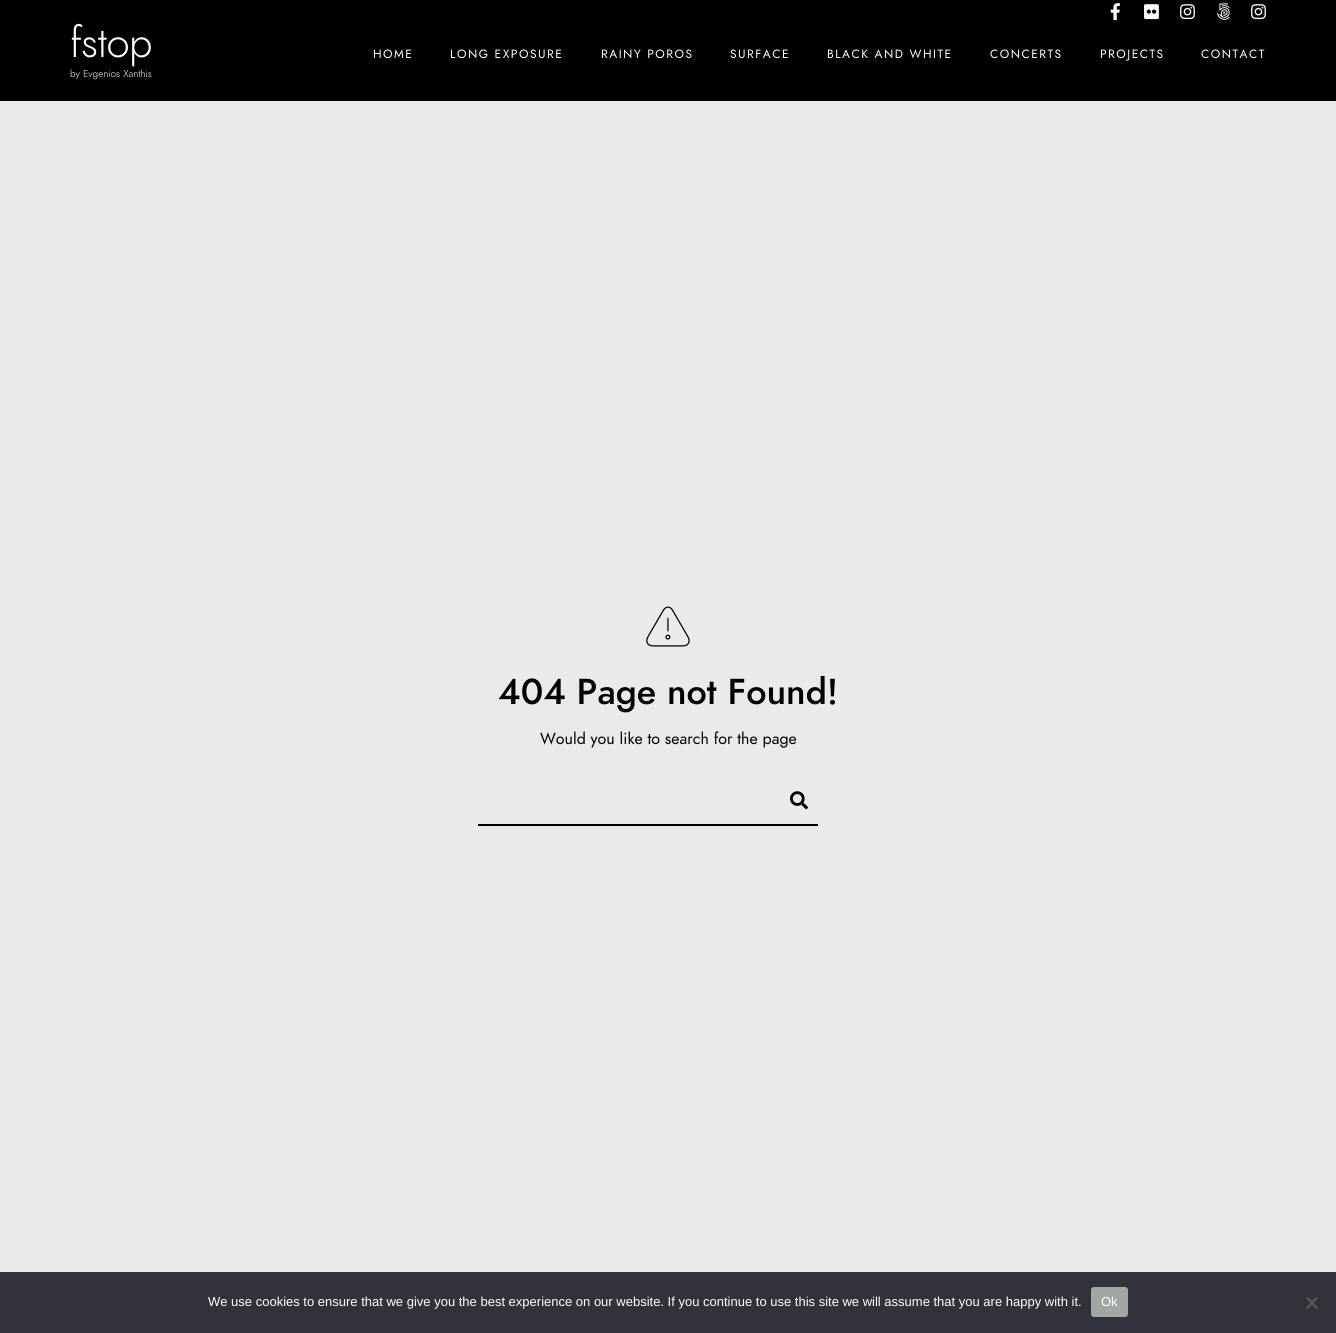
#include <cairo.h>
#include <math.h>
#include <stddef.h>

typedef struct { double x, y; const char *s; } line_t;

static void ink(cairo_t *ctx, unsigned color) {
    cairo_set_source_rgb(ctx, (color >> 16) / 255.0, (color >> 8 & 255) / 255.0, (color & 255) / 255.0);
}

static void write_spaced(cairo_t *ctx, double x, double y, const char *s, double letter, double word) {
    cairo_move_to(ctx, x, y);
    while (*s) {
        char ch[5] = {0};
        int n = 0;
        do ch[n++] = *s++; while ((*s & 0xC0) == 0x80);
        cairo_show_text(ctx, ch);
        cairo_rel_move_to(ctx, letter + word * (*ch == ' '), 0);
    }
}

static void round_path(cairo_t *ctx, double x, double y, double w, double h, double r) {
    cairo_new_sub_path(ctx);
    cairo_arc(ctx, x + w - r, y + h - r, r, 0, M_PI / 2);
    cairo_arc(ctx, x + r, y + h - r, r, M_PI / 2, M_PI);
    cairo_arc(ctx, x + r, y + r, r, M_PI, 1.5 * M_PI);
    cairo_arc(ctx, x + w - r, y + r, r, 1.5 * M_PI, 2 * M_PI);
    cairo_close_path(ctx);
}

static void paste(cairo_t *ctx, const char *path, double x, double y, double w, double h) {
    cairo_surface_t *image = cairo_image_surface_create_from_png(path);
    cairo_save(ctx);
    cairo_set_source_surface(ctx, image, x, y);
    cairo_rectangle(ctx, x, y, w, h);
    cairo_fill(ctx);
    cairo_restore(ctx);
    cairo_surface_destroy(image);
}

int main(void) {
    cairo_surface_t *surface = cairo_image_surface_create(CAIRO_FORMAT_RGB24, 1336, 1333);
    cairo_t *ctx = cairo_create(surface);
    cairo_font_options_t *options = cairo_font_options_create();
    cairo_font_options_set_hint_metrics(options, CAIRO_HINT_METRICS_OFF);
    cairo_font_options_set_hint_style(options, CAIRO_HINT_STYLE_NONE);
    cairo_set_font_options(ctx, options);
    cairo_set_miter_limit(ctx, 4);
    ink(ctx, 0xEAEAEA);
    cairo_paint(ctx);
    ink(ctx, 0x000000);
    cairo_rectangle(ctx, 0, 0, 1336, 101);
    cairo_fill(ctx);
    paste(ctx, "media/1.png", 1110, 3, 10, 18);
    paste(ctx, "media/2.png", 1144, 4, 15, 16);
    paste(ctx, "media/3.png", 1180, 4, 15, 16);
    paste(ctx, "media/4.png", 1217, 3, 13, 17);
    paste(ctx, "media/3.png", 1251, 4, 15, 16);
    cairo_select_font_face(ctx, "Jost Light", CAIRO_FONT_SLANT_NORMAL, CAIRO_FONT_WEIGHT_NORMAL);
    cairo_set_font_size(ctx, 42);
    ink(ctx, 0xFFFFFF);
    write_spaced(ctx, 70, 57, "fstop", -0.5, 0);
    cairo_set_font_size(ctx, 10);
    cairo_move_to(ctx, 70, 77);
    cairo_show_text(ctx, "by Evgenios Xanthis");
    cairo_select_font_face(ctx, "Jost", CAIRO_FONT_SLANT_NORMAL, CAIRO_FONT_WEIGHT_NORMAL);
    cairo_set_font_size(ctx, 12);
    {
        static const line_t items[] = {
            {373, 58, "HOME"},
            {450, 58, "LONG EXPOSURE"},
            {601, 58, "RAINY POROS"},
            {730, 58, "SURFACE"},
            {827, 58, "BLACK AND WHITE"},
            {990, 58, "CONCERTS"},
            {1100, 58, "PROJECTS"},
            {1201, 58, "CONTACT"},
        };
        for (size_t i = 0; i < sizeof items / sizeof *items; i++) {
            write_spaced(ctx, items[i].x, items[i].y, items[i].s, 1.5, 0);
        }
    }
    paste(ctx, "media/5.png", 646, 606, 44, 41);
    cairo_select_font_face(ctx, "Jost Medium", CAIRO_FONT_SLANT_NORMAL, CAIRO_FONT_WEIGHT_NORMAL);
    cairo_set_font_size(ctx, 36);
    ink(ctx, 0x000000);
    cairo_move_to(ctx, 498, 704);
    cairo_show_text(ctx, "404 Page not Found!");
    cairo_select_font_face(ctx, "Jost", CAIRO_FONT_SLANT_NORMAL, CAIRO_FONT_WEIGHT_NORMAL);
    cairo_set_font_size(ctx, 16);
    cairo_move_to(ctx, 540, 744);
    cairo_show_text(ctx, "Would you like to search for the page");
    paste(ctx, "media/6.png", 790, 791, 18, 19);
    cairo_rectangle(ctx, 478, 824, 340, 2);
    cairo_fill(ctx);
    ink(ctx, 0x32323A);
    cairo_rectangle(ctx, 0, 1272, 1336, 61);
    cairo_fill(ctx);
    cairo_select_font_face(ctx, "Liberation Sans", CAIRO_FONT_SLANT_NORMAL, CAIRO_FONT_WEIGHT_NORMAL);
    cairo_set_font_size(ctx, 13);
    ink(ctx, 0xFFFFFF);
    cairo_move_to(ctx, 208, 1306);
    cairo_show_text(ctx, "We use cookies to ensure that we give you the best experience on our website. If you continue to use this site we will assume that you are happy with it.");
    ink(ctx, 0xA1A8A4);
    round_path(ctx, 1091, 1287, 37, 30, 3);
    cairo_fill(ctx);
    ink(ctx, 0xFFFFFF);
    cairo_move_to(ctx, 1101, 1306);
    cairo_show_text(ctx, "Ok");
    ink(ctx, 0x59595D);
    cairo_new_path(ctx);
    cairo_move_to(ctx, 1316.5, 1296.5);
    cairo_line_to(ctx, 1318, 1298);
    cairo_line_to(ctx, 1307.5, 1309);
    cairo_line_to(ctx, 1306, 1307.5);
    cairo_close_path(ctx);
    cairo_fill(ctx);
    cairo_new_path(ctx);
    cairo_move_to(ctx, 1306, 1298);
    cairo_line_to(ctx, 1307.5, 1296.5);
    cairo_line_to(ctx, 1318, 1307.5);
    cairo_line_to(ctx, 1316.5, 1309);
    cairo_close_path(ctx);
    cairo_fill(ctx);
    cairo_surface_write_to_png(surface, "image.png");
    cairo_font_options_destroy(options);
    cairo_destroy(ctx);
    cairo_surface_destroy(surface);
    return 0;
}
